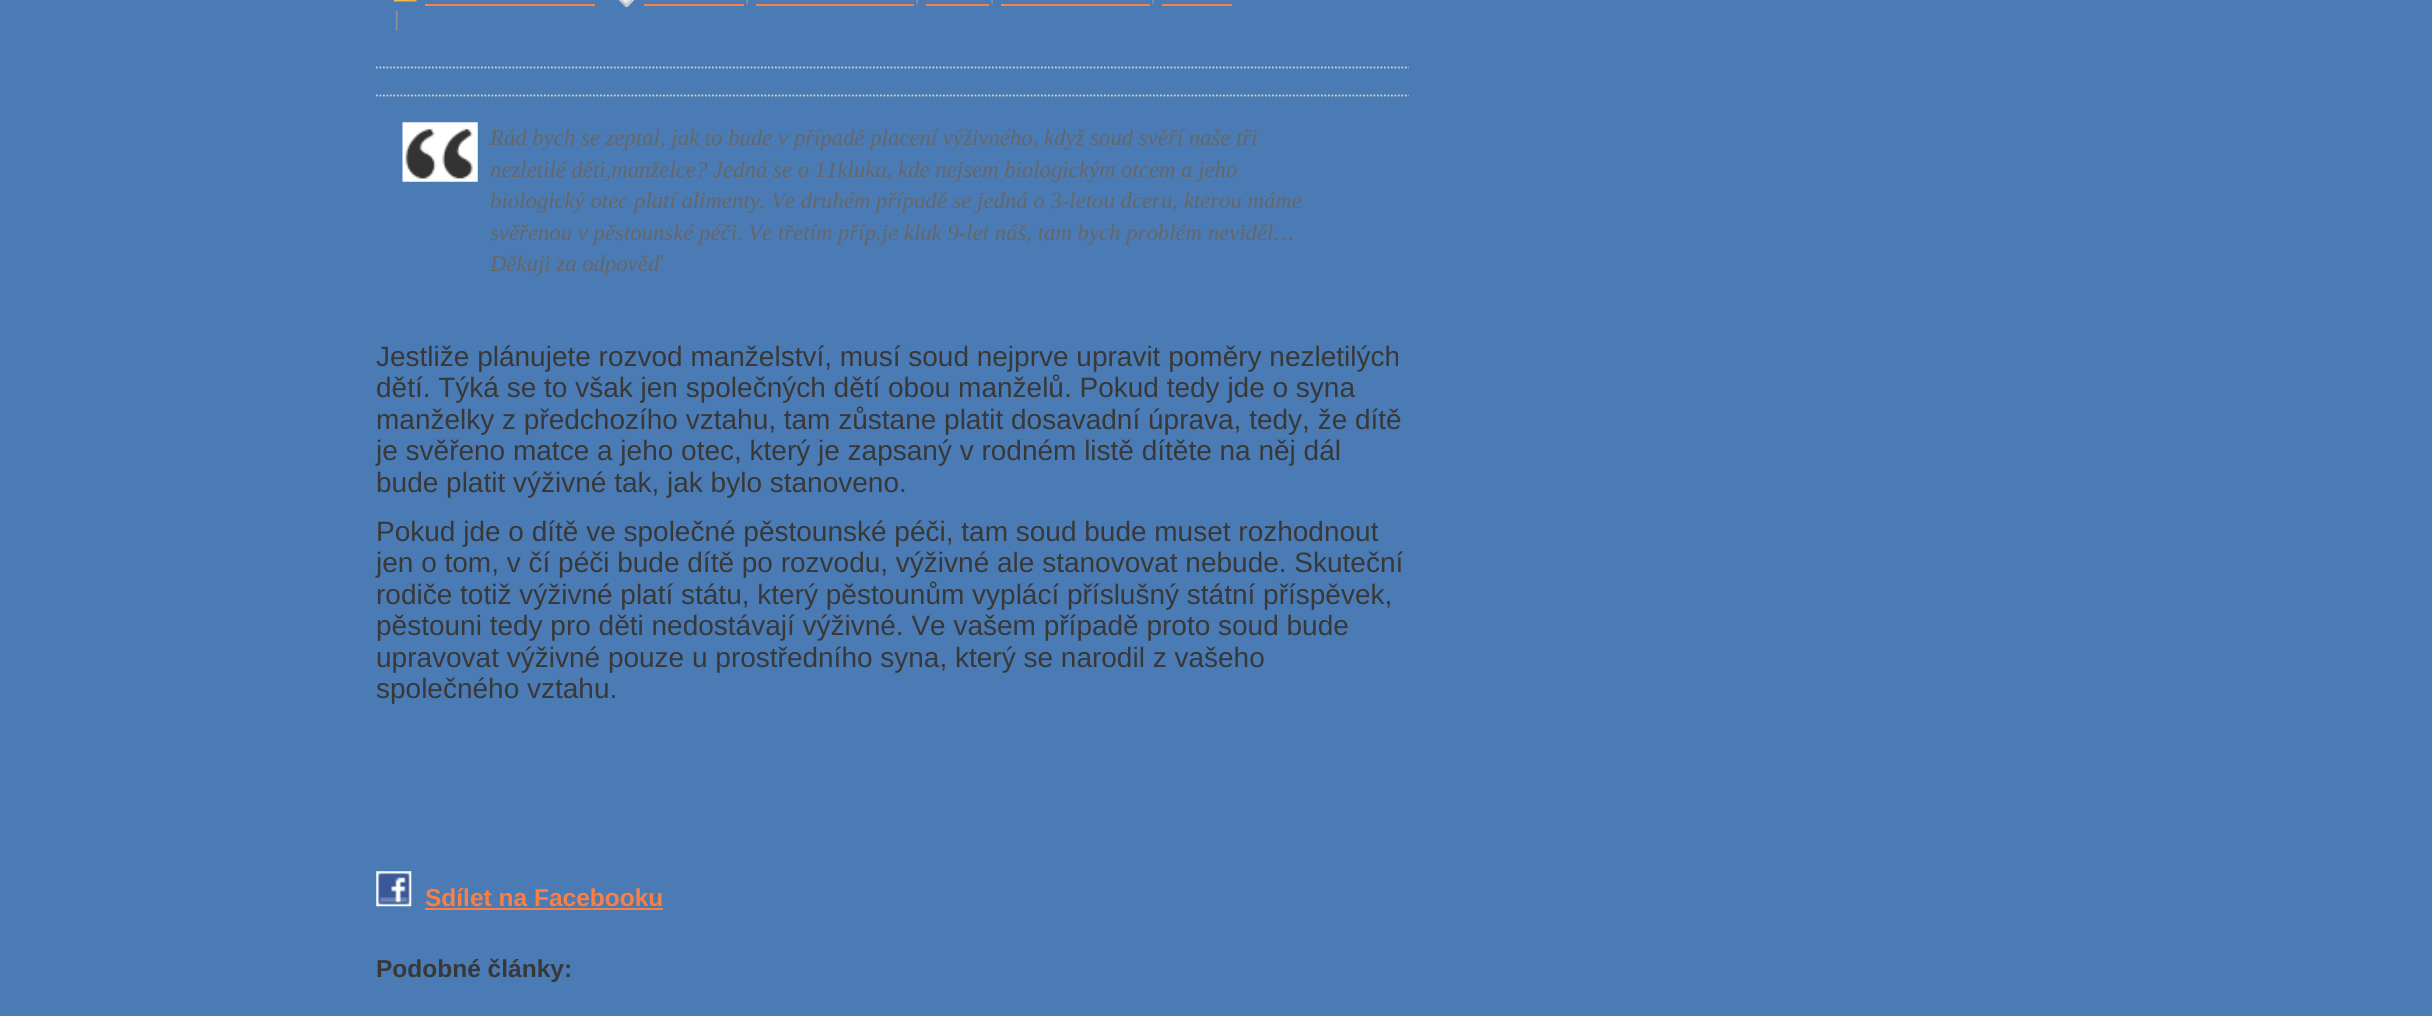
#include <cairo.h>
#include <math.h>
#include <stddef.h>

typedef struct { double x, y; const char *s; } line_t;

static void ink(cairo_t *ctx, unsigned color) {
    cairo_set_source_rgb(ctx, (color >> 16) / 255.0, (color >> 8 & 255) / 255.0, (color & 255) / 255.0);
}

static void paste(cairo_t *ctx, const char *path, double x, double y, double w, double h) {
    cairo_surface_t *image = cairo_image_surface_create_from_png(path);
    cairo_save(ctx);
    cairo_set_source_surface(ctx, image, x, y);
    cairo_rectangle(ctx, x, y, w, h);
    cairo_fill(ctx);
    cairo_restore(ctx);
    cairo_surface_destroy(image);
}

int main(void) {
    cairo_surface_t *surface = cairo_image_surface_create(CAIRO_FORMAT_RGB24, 2432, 1016);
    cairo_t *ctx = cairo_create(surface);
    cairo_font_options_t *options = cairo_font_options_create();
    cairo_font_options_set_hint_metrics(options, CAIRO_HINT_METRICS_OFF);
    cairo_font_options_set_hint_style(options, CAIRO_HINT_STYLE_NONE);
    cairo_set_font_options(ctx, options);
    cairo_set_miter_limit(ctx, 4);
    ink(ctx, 0x4A7BB5);
    cairo_paint(ctx);
    paste(ctx, "media/1.png", 393, 0, 24, 2);
    ink(ctx, 0xFA7F42);
    cairo_rectangle(ctx, 425, 4, 170, 2);
    cairo_fill(ctx);
    paste(ctx, "media/2.png", 617, 0, 19, 7);
    cairo_select_font_face(ctx, "Liberation Sans", CAIRO_FONT_SLANT_NORMAL, CAIRO_FONT_WEIGHT_NORMAL);
    cairo_set_font_size(ctx, 21);
    ink(ctx, 0x8E8F91);
    cairo_move_to(ctx, 744, 2);
    cairo_show_text(ctx, ",");
    ink(ctx, 0xFA7F42);
    cairo_rectangle(ctx, 644, 4, 100, 2);
    cairo_fill(ctx);
    ink(ctx, 0x8E8F91);
    cairo_move_to(ctx, 914, 2);
    cairo_show_text(ctx, ",");
    ink(ctx, 0xFA7F42);
    cairo_rectangle(ctx, 756, 4, 158, 2);
    cairo_fill(ctx);
    ink(ctx, 0x8E8F91);
    cairo_move_to(ctx, 989, 2);
    cairo_show_text(ctx, ",");
    ink(ctx, 0xFA7F42);
    cairo_rectangle(ctx, 926, 4, 63, 2);
    cairo_fill(ctx);
    ink(ctx, 0x8E8F91);
    cairo_move_to(ctx, 1150, 2);
    cairo_show_text(ctx, ",");
    ink(ctx, 0xFA7F42);
    cairo_rectangle(ctx, 1001, 4, 149, 2);
    cairo_fill(ctx);
    cairo_rectangle(ctx, 1162, 4, 70, 2);
    cairo_fill(ctx);
    ink(ctx, 0x8E8F91);
    cairo_move_to(ctx, 394, 26);
    cairo_show_text(ctx, "|");
    cairo_new_path(ctx);
    cairo_move_to(ctx, 376, 67.5);
    cairo_line_to(ctx, 1409, 67.5);
    ink(ctx, 0xD3D3D3);
    cairo_set_line_width(ctx, 1.8);
    cairo_set_dash(ctx, (double[]){1.75, 1.75}, 2, 0);
    cairo_stroke(ctx);
    cairo_new_path(ctx);
    cairo_move_to(ctx, 376, 95.5);
    cairo_line_to(ctx, 1409, 95.5);
    cairo_stroke(ctx);
    paste(ctx, "media/3.png", 402, 122, 76, 60);
    cairo_select_font_face(ctx, "Liberation Serif", CAIRO_FONT_SLANT_ITALIC, CAIRO_FONT_WEIGHT_NORMAL);
    cairo_set_font_size(ctx, 22.75);
    ink(ctx, 0x666666);
    {
        static const line_t items[] = {
            {490, 145, "Rád bych se zeptal, jak to bude v případě placení výživného, když soud svěří naše tři"},
            {490, 177, "nezletilé děti,manželce? Jedná se o 11kluka, kde nejsem biologickým otcem a jeho"},
            {490, 208, "biologický otec platí alimenty. Ve druhém případě se jedná o 3-letou dceru, kterou máme"},
            {490, 240, "svěřenou v pěstounské péči. Ve třetím příp.je kluk 9-let náš, tam bych problém neviděl…"},
            {490, 271, "Děkuji za odpověď"},
        };
        for (size_t i = 0; i < sizeof items / sizeof *items; i++) {
            cairo_move_to(ctx, items[i].x, items[i].y);
            cairo_show_text(ctx, items[i].s);
        }
    }
    cairo_select_font_face(ctx, "Liberation Sans", CAIRO_FONT_SLANT_NORMAL, CAIRO_FONT_WEIGHT_NORMAL);
    cairo_set_font_size(ctx, 28);
    ink(ctx, 0x383838);
    {
        static const line_t items[] = {
            {376, 366, "Jestliže plánujete rozvod manželství, musí soud nejprve upravit poměry nezletilých"},
            {376, 397, "dětí. Týká se to však jen společných dětí obou manželů. Pokud tedy jde o syna"},
            {376, 429, "manželky z předchozího vztahu, tam zůstane platit dosavadní úprava, tedy, že dítě"},
            {376, 460, "je svěřeno matce a jeho otec, který je zapsaný v rodném listě dítěte na něj dál"},
            {376, 492, "bude platit výživné tak, jak bylo stanoveno."},
            {376, 541, "Pokud jde o dítě ve společné pěstounské péči, tam soud bude muset rozhodnout"},
            {376, 572, "jen o tom, v čí péči bude dítě po rozvodu, výživné ale stanovovat nebude. Skuteční"},
            {376, 604, "rodiče totiž výživné platí státu, který pěstounům vyplácí příslušný státní příspěvek,"},
            {376, 635, "pěstouni tedy pro děti nedostávají výživné. Ve vašem případě proto soud bude"},
            {376, 667, "upravovat výživné pouze u prostředního syna, který se narodil z vašeho"},
            {376, 698, "společného vztahu."},
        };
        for (size_t i = 0; i < sizeof items / sizeof *items; i++) {
            cairo_move_to(ctx, items[i].x, items[i].y);
            cairo_show_text(ctx, items[i].s);
        }
    }
    paste(ctx, "media/4.png", 376, 871, 36, 36);
    cairo_select_font_face(ctx, "Liberation Sans", CAIRO_FONT_SLANT_NORMAL, CAIRO_FONT_WEIGHT_BOLD);
    cairo_set_font_size(ctx, 24.5);
    ink(ctx, 0xFA7F42);
    cairo_move_to(ctx, 425, 906);
    cairo_show_text(ctx, "Sdílet na Facebooku");
    cairo_rectangle(ctx, 425, 908, 238, 2);
    cairo_fill(ctx);
    ink(ctx, 0x383838);
    cairo_move_to(ctx, 376, 977);
    cairo_show_text(ctx, "Podobné články:");
    cairo_surface_write_to_png(surface, "image.png");
    cairo_font_options_destroy(options);
    cairo_destroy(ctx);
    cairo_surface_destroy(surface);
    return 0;
}
